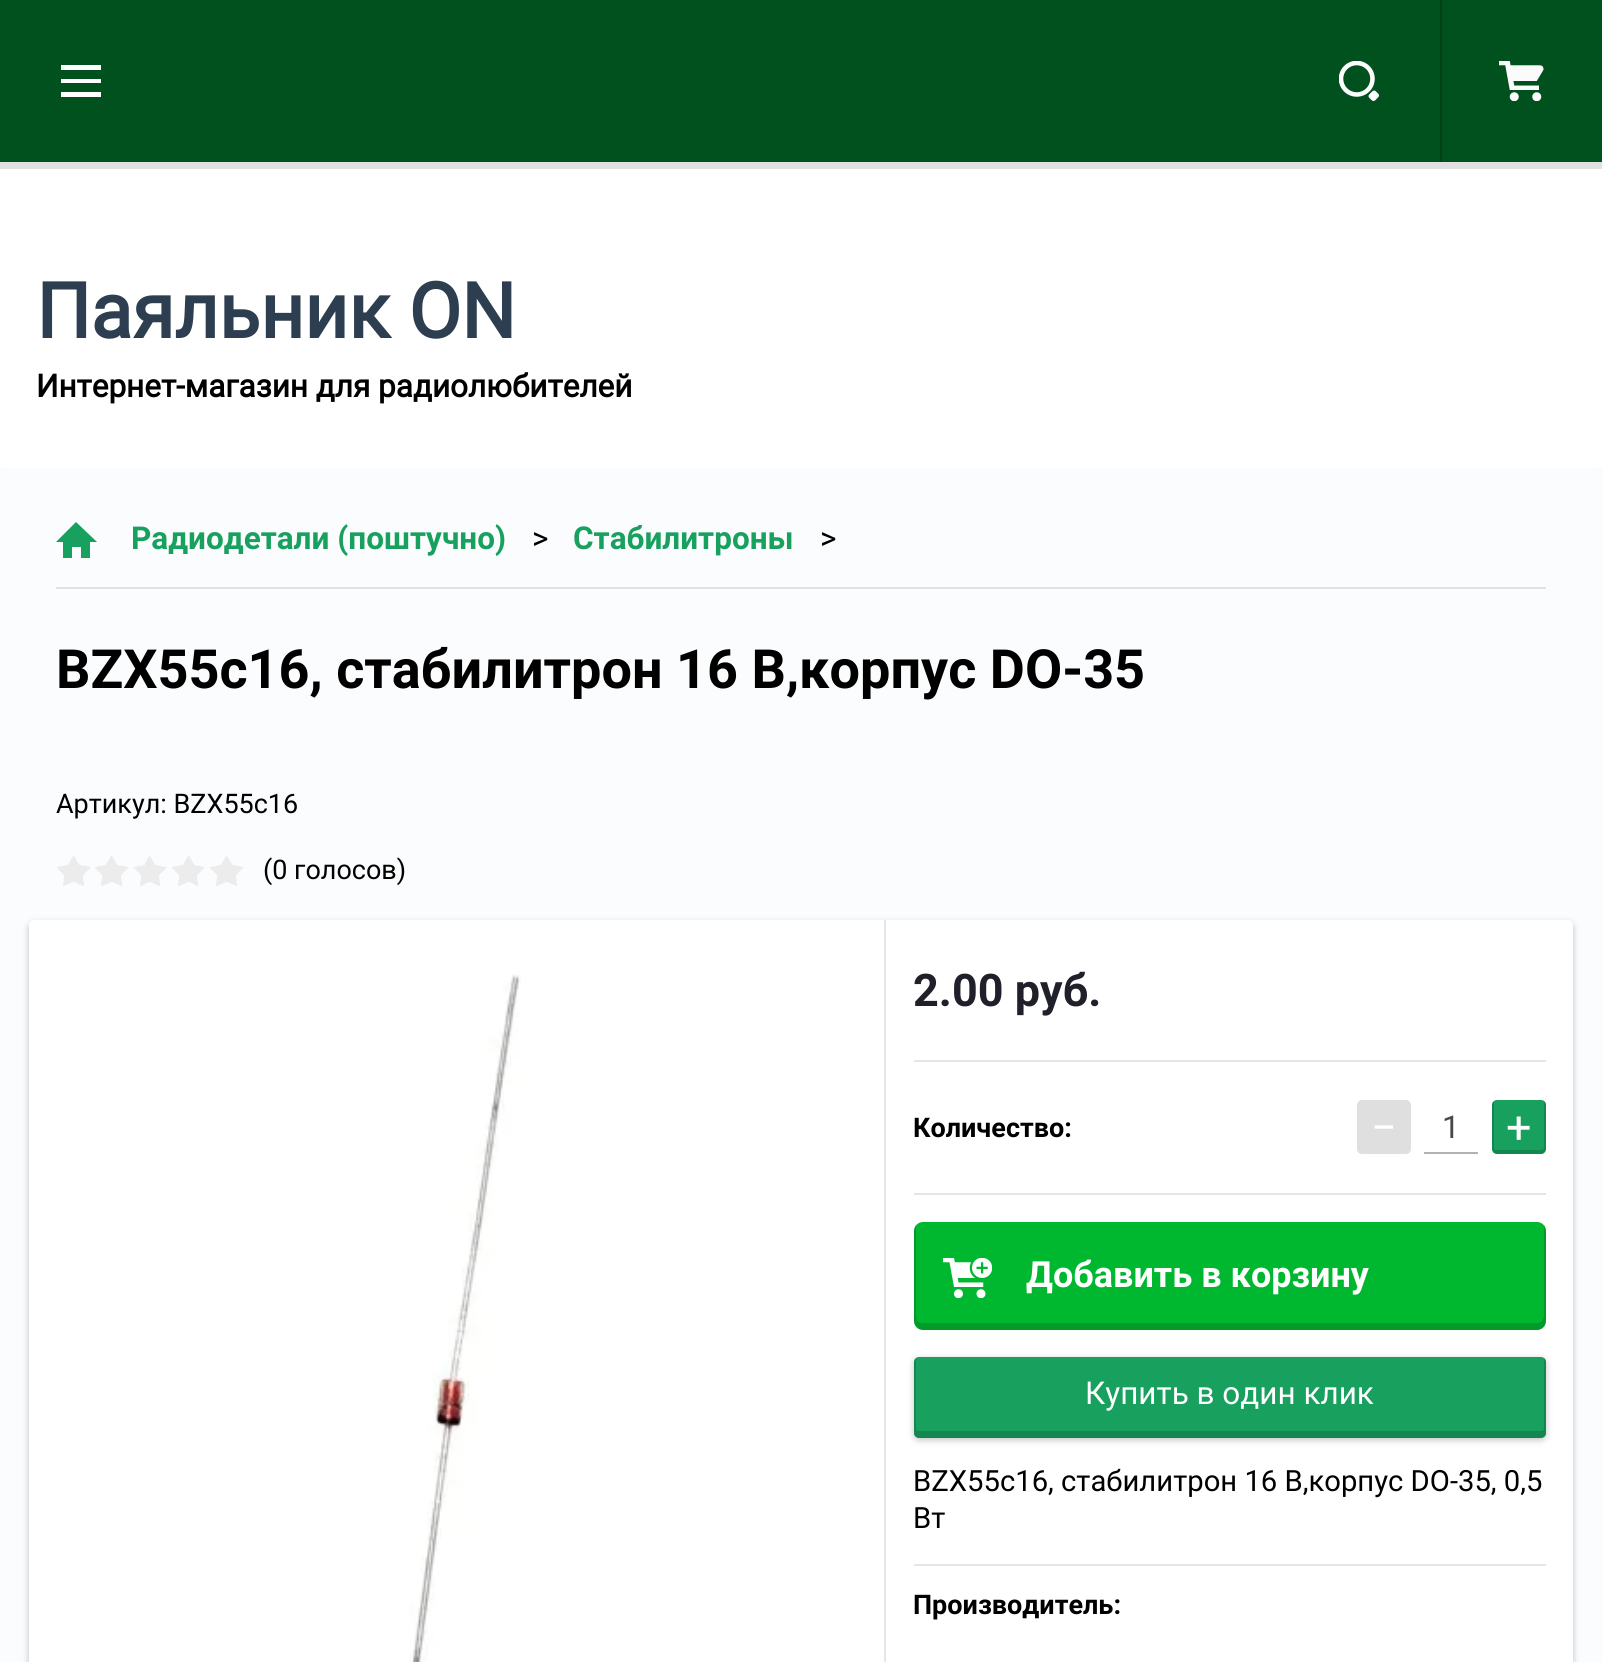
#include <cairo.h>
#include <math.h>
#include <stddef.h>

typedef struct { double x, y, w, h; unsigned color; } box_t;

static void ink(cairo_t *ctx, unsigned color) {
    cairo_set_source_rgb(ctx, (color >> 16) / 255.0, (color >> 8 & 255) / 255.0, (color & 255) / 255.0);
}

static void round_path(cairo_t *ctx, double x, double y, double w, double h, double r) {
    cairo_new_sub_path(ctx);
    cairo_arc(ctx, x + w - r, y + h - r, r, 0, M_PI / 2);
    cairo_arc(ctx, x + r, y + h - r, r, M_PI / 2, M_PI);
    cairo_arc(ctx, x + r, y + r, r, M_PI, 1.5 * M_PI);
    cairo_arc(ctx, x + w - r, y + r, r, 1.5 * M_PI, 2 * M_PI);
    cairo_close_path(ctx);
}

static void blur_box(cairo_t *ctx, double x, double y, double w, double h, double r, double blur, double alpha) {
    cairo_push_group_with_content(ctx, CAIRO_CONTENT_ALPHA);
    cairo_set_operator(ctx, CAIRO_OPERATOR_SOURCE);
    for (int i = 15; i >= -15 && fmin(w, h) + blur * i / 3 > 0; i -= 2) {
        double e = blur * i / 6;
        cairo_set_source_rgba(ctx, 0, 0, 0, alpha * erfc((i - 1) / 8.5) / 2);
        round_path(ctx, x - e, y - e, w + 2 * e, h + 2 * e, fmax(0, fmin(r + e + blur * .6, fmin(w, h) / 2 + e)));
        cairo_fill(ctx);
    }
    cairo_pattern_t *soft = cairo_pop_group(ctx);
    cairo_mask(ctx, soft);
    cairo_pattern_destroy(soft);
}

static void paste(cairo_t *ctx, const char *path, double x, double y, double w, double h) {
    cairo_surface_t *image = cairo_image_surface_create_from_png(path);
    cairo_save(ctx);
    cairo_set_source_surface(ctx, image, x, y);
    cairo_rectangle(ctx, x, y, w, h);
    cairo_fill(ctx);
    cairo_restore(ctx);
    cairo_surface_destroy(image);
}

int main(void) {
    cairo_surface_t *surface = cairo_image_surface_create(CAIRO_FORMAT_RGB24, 1602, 1662);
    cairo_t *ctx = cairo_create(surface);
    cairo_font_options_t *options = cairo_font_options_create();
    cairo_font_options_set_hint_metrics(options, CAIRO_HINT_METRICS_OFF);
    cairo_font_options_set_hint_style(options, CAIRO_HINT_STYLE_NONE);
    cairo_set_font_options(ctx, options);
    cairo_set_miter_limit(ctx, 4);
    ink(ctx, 0xF4FEF8);
    cairo_paint(ctx);
    {
        static const box_t items[] = {
            {0, 169, 1602, 299, 0xFFFFFF},
            {0, 162, 1602, 7, 0xE0E0E0},
            {0, 0, 1602, 162, 0x00511D},
        };
        for (size_t i = 0; i < sizeof items / sizeof *items; i++) {
            ink(ctx, items[i].color);
            cairo_rectangle(ctx, items[i].x, items[i].y, items[i].w, items[i].h);
            cairo_fill(ctx);
        }
    }
    ink(ctx, 0xFFFFFF);
    cairo_set_fill_rule(ctx, CAIRO_FILL_RULE_EVEN_ODD);
    cairo_new_path(ctx);
    cairo_move_to(ctx, 61, 97);
    cairo_line_to(ctx, 61, 92);
    cairo_line_to(ctx, 101, 92);
    cairo_line_to(ctx, 101, 97);
    cairo_close_path(ctx);
    cairo_move_to(ctx, 61, 79);
    cairo_line_to(ctx, 101, 79);
    cairo_line_to(ctx, 101, 83);
    cairo_line_to(ctx, 61, 83);
    cairo_close_path(ctx);
    cairo_move_to(ctx, 61, 65);
    cairo_line_to(ctx, 101, 65);
    cairo_line_to(ctx, 101, 70);
    cairo_line_to(ctx, 61, 70);
    cairo_close_path(ctx);
    cairo_fill(ctx);
    paste(ctx, "media/1.png", 1339, 61, 40, 40);
    ink(ctx, 0x004117);
    cairo_rectangle(ctx, 1440, 0, 2, 162);
    cairo_fill(ctx);
    paste(ctx, "media/2.png", 1499, 61, 45, 40);
    cairo_select_font_face(ctx, "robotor", CAIRO_FONT_SLANT_NORMAL, CAIRO_FONT_WEIGHT_BOLD);
    cairo_set_font_size(ctx, 76.5);
    ink(ctx, 0x2C3E50);
    cairo_move_to(ctx, 36, 338);
    cairo_show_text(ctx, "Паяльник ON");
    cairo_set_font_size(ctx, 31.5);
    ink(ctx, 0x000000);
    cairo_move_to(ctx, 36, 397);
    cairo_show_text(ctx, "Интернет-магазин для радиолюбителей");
    ink(ctx, 0xFBFCFD);
    round_path(ctx, 0, 468, 1602, 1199, 5);
    cairo_fill(ctx);
    ink(ctx, 0xE1E2E3);
    cairo_rectangle(ctx, 56, 587, 1490, 2);
    cairo_fill(ctx);
    ink(ctx, 0x17A05E);
    cairo_new_path(ctx);
    cairo_move_to(ctx, 90, 542);
    cairo_line_to(ctx, 90, 558);
    cairo_line_to(ctx, 81, 558);
    cairo_line_to(ctx, 81, 547);
    cairo_line_to(ctx, 72, 547);
    cairo_line_to(ctx, 72, 558);
    cairo_line_to(ctx, 63, 558);
    cairo_line_to(ctx, 63, 542);
    cairo_line_to(ctx, 56, 542);
    cairo_line_to(ctx, 76, 522);
    cairo_line_to(ctx, 97, 542);
    cairo_close_path(ctx);
    cairo_fill(ctx);
    cairo_select_font_face(ctx, "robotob", CAIRO_FONT_SLANT_NORMAL, CAIRO_FONT_WEIGHT_BOLD);
    cairo_move_to(ctx, 131, 549);
    cairo_show_text(ctx, "Радиодетали (поштучно)");
    cairo_select_font_face(ctx, "robotor", CAIRO_FONT_SLANT_NORMAL, CAIRO_FONT_WEIGHT_NORMAL);
    ink(ctx, 0x000000);
    cairo_move_to(ctx, 532, 549);
    cairo_show_text(ctx, ">");
    cairo_select_font_face(ctx, "robotob", CAIRO_FONT_SLANT_NORMAL, CAIRO_FONT_WEIGHT_BOLD);
    ink(ctx, 0x17A05E);
    cairo_move_to(ctx, 573, 549);
    cairo_show_text(ctx, "Стабилитроны");
    cairo_select_font_face(ctx, "robotor", CAIRO_FONT_SLANT_NORMAL, CAIRO_FONT_WEIGHT_NORMAL);
    ink(ctx, 0x000000);
    cairo_move_to(ctx, 820, 549);
    cairo_show_text(ctx, ">");
    cairo_select_font_face(ctx, "robotob", CAIRO_FONT_SLANT_NORMAL, CAIRO_FONT_WEIGHT_BOLD);
    cairo_set_font_size(ctx, 54);
    cairo_move_to(ctx, 56, 688);
    cairo_show_text(ctx, "BZX55c16, стабилитрон 16 В,корпус DO-35");
    cairo_select_font_face(ctx, "robotor", CAIRO_FONT_SLANT_NORMAL, CAIRO_FONT_WEIGHT_NORMAL);
    cairo_set_font_size(ctx, 27);
    cairo_move_to(ctx, 56, 813);
    cairo_show_text(ctx, "Артикул: BZX55c16");
    paste(ctx, "media/3.png", 57, 855, 187, 31);
    cairo_move_to(ctx, 263, 879);
    cairo_show_text(ctx, "(0 голосов)");
    ink(ctx, 0x000000);
    blur_box(ctx, 29, 923, 1544, 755, 5, 3.5, 0.24);
    ink(ctx, 0xFFFFFF);
    round_path(ctx, 29, 920, 1544, 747, 5);
    cairo_fill(ctx);
    paste(ctx, "media/4.png", 409, 974, 112, 688);
    ink(ctx, 0xE6E6E6);
    cairo_set_fill_rule(ctx, CAIRO_FILL_RULE_WINDING);
    cairo_new_path(ctx);
    cairo_move_to(ctx, 884, 920);
    cairo_line_to(ctx, 884, 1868);
    cairo_line_to(ctx, 1571, 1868);
    cairo_line_to(ctx, 886, 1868);
    cairo_line_to(ctx, 886, 920);
    cairo_line_to(ctx, 1571, 920);
    cairo_close_path(ctx);
    cairo_fill(ctx);
    cairo_select_font_face(ctx, "robotob", CAIRO_FONT_SLANT_NORMAL, CAIRO_FONT_WEIGHT_BOLD);
    cairo_set_font_size(ctx, 45);
    ink(ctx, 0x20202A);
    cairo_move_to(ctx, 913, 1006);
    cairo_show_text(ctx, "2.00 руб.");
    ink(ctx, 0xE5E5E5);
    cairo_rectangle(ctx, 914, 1060, 632, 2);
    cairo_fill(ctx);
    cairo_rectangle(ctx, 914, 1193, 632, 2);
    cairo_fill(ctx);
    cairo_set_font_size(ctx, 27);
    ink(ctx, 0x000000);
    cairo_move_to(ctx, 913, 1137);
    cairo_show_text(ctx, "Количество:");
    ink(ctx, 0xDFDFDF);
    round_path(ctx, 1357, 1100, 54, 54, 5);
    cairo_fill(ctx);
    cairo_select_font_face(ctx, "robotor", CAIRO_FONT_SLANT_NORMAL, CAIRO_FONT_WEIGHT_NORMAL);
    cairo_set_font_size(ctx, 45);
    ink(ctx, 0xFFFFFF);
    cairo_move_to(ctx, 1371, 1143);
    cairo_show_text(ctx, "−");
    ink(ctx, 0xB2B2B2);
    cairo_rectangle(ctx, 1424, 1152, 54, 2);
    cairo_fill(ctx);
    cairo_set_font_size(ctx, 31.5);
    ink(ctx, 0x484848);
    cairo_move_to(ctx, 1442, 1138);
    cairo_show_text(ctx, "1");
    ink(ctx, 0x17A05E);
    round_path(ctx, 1492, 1100, 54, 54, 5);
    cairo_fill(ctx);
    cairo_set_source_rgba(ctx, 0, 0, 0, 0.16);
    cairo_new_path(ctx);
    cairo_move_to(ctx, 1546, 1105);
    cairo_curve_to(ctx, 1546, 1102, 1544, 1100, 1541, 1100);
    cairo_curve_to(ctx, 1542, 1100, 1544, 1101, 1544, 1102);
    cairo_line_to(ctx, 1544, 1148);
    cairo_curve_to(ctx, 1544, 1149, 1542, 1150, 1541, 1150);
    cairo_line_to(ctx, 1496, 1150);
    cairo_curve_to(ctx, 1495, 1150, 1494, 1149, 1494, 1148);
    cairo_line_to(ctx, 1494, 1102);
    cairo_line_to(ctx, 1495, 1101);
    cairo_curve_to(ctx, 1493, 1101, 1492, 1103, 1492, 1105);
    cairo_line_to(ctx, 1492, 1149);
    cairo_curve_to(ctx, 1492, 1152, 1494, 1154, 1497, 1154);
    cairo_line_to(ctx, 1541, 1154);
    cairo_curve_to(ctx, 1544, 1154, 1546, 1152, 1546, 1149);
    cairo_close_path(ctx);
    cairo_fill(ctx);
    cairo_set_font_size(ctx, 45);
    ink(ctx, 0xFFFFFF);
    cairo_move_to(ctx, 1506, 1143);
    cairo_show_text(ctx, "+");
    ink(ctx, 0x00B830);
    round_path(ctx, 914, 1222, 632, 108, 9);
    cairo_fill(ctx);
    cairo_set_source_rgba(ctx, 0, 0, 0, 0.16);
    cairo_new_path(ctx);
    cairo_move_to(ctx, 916, 1225);
    cairo_curve_to(ctx, 915, 1227, 914, 1229, 914, 1231);
    cairo_line_to(ctx, 914, 1321);
    cairo_curve_to(ctx, 914, 1326, 918, 1330, 923, 1330);
    cairo_line_to(ctx, 1537, 1330);
    cairo_curve_to(ctx, 1542, 1330, 1546, 1326, 1546, 1321);
    cairo_line_to(ctx, 1546, 1231);
    cairo_curve_to(ctx, 1546, 1229, 1545, 1227, 1544, 1225);
    cairo_line_to(ctx, 1544, 1316);
    cairo_curve_to(ctx, 1544, 1320, 1540, 1323, 1537, 1323);
    cairo_line_to(ctx, 922, 1323);
    cairo_curve_to(ctx, 919, 1323, 916, 1320, 916, 1316);
    cairo_close_path(ctx);
    cairo_fill(ctx);
    paste(ctx, "media/5.png", 943, 1258, 49, 40);
    cairo_select_font_face(ctx, "robotob", CAIRO_FONT_SLANT_NORMAL, CAIRO_FONT_WEIGHT_BOLD);
    cairo_set_font_size(ctx, 36);
    ink(ctx, 0xFFFFFF);
    cairo_move_to(ctx, 1026, 1287);
    cairo_show_text(ctx, "Добавить в корзину");
    ink(ctx, 0x000000);
    blur_box(ctx, 914, 1359, 632, 81, 5, 3.5, 0.24);
    ink(ctx, 0x17A05E);
    round_path(ctx, 914, 1357, 632, 81, 5);
    cairo_fill(ctx);
    cairo_set_source_rgba(ctx, 0, 0, 0, 0.16);
    cairo_new_path(ctx);
    cairo_move_to(ctx, 916, 1358);
    cairo_curve_to(ctx, 915, 1359, 914, 1360, 914, 1362);
    cairo_line_to(ctx, 914, 1433);
    cairo_curve_to(ctx, 914, 1436, 916, 1438, 919, 1438);
    cairo_line_to(ctx, 1541, 1438);
    cairo_curve_to(ctx, 1544, 1438, 1546, 1436, 1546, 1433);
    cairo_line_to(ctx, 1546, 1362);
    cairo_curve_to(ctx, 1546, 1360, 1545, 1359, 1544, 1358);
    cairo_line_to(ctx, 1544, 1429);
    cairo_curve_to(ctx, 1544, 1430, 1542, 1431, 1541, 1431);
    cairo_line_to(ctx, 918, 1431);
    cairo_curve_to(ctx, 917, 1431, 916, 1430, 916, 1429);
    cairo_close_path(ctx);
    cairo_fill(ctx);
    cairo_select_font_face(ctx, "robotor", CAIRO_FONT_SLANT_NORMAL, CAIRO_FONT_WEIGHT_NORMAL);
    cairo_set_font_size(ctx, 31.5);
    ink(ctx, 0xFFFFFF);
    cairo_move_to(ctx, 1085, 1404);
    cairo_show_text(ctx, "Купить в один клик");
    cairo_set_font_size(ctx, 29.25);
    ink(ctx, 0x000000);
    cairo_move_to(ctx, 913, 1491);
    cairo_show_text(ctx, "BZX55c16, стабилитрон 16 В,корпус DO-35, 0,5");
    cairo_move_to(ctx, 913, 1528);
    cairo_show_text(ctx, "Вт");
    ink(ctx, 0xE5E5E5);
    cairo_rectangle(ctx, 914, 1564, 632, 2);
    cairo_fill(ctx);
    cairo_select_font_face(ctx, "robotob", CAIRO_FONT_SLANT_NORMAL, CAIRO_FONT_WEIGHT_BOLD);
    cairo_set_font_size(ctx, 27);
    ink(ctx, 0x000000);
    cairo_move_to(ctx, 913, 1614);
    cairo_show_text(ctx, "Производитель:");
    cairo_surface_write_to_png(surface, "image.png");
    cairo_font_options_destroy(options);
    cairo_destroy(ctx);
    cairo_surface_destroy(surface);
    return 0;
}
